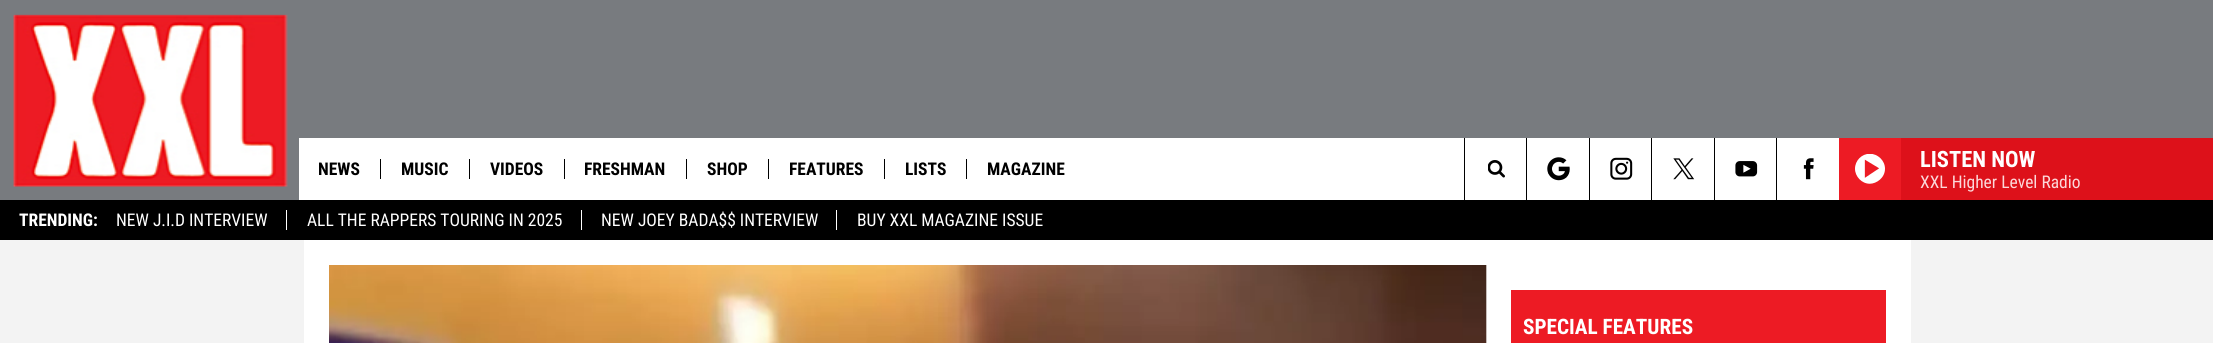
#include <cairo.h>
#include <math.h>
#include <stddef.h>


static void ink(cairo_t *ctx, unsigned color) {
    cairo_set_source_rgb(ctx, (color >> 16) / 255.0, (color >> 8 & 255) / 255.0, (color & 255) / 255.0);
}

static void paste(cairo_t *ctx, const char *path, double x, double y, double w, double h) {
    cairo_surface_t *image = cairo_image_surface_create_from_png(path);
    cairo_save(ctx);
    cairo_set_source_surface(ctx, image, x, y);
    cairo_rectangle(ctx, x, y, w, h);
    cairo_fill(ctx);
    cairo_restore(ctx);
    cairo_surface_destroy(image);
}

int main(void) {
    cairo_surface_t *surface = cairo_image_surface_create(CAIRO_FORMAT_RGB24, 2213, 343);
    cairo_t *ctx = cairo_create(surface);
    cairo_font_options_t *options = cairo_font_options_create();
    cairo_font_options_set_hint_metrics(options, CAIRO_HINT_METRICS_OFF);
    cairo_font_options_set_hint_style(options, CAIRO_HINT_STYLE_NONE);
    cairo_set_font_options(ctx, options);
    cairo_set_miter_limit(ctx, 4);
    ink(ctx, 0xF3F3F3);
    cairo_paint(ctx);
    ink(ctx, 0x787B7F);
    cairo_rectangle(ctx, 0, 0, 299, 200);
    cairo_fill(ctx);
    paste(ctx, "media/1.png", 13, 14, 275, 173);
    cairo_rectangle(ctx, 299, 0, 1914, 138);
    cairo_fill(ctx);
    ink(ctx, 0xFFFFFF);
    cairo_rectangle(ctx, 299, 138, 1540, 62);
    cairo_fill(ctx);
    cairo_select_font_face(ctx, "Roboto Condensed", CAIRO_FONT_SLANT_NORMAL, CAIRO_FONT_WEIGHT_BOLD);
    cairo_set_font_size(ctx, 17.5);
    ink(ctx, 0x000000);
    cairo_move_to(ctx, 318, 175);
    cairo_show_text(ctx, "NEWS");
    cairo_rectangle(ctx, 380, 159, 1, 20);
    cairo_fill(ctx);
    cairo_move_to(ctx, 401, 175);
    cairo_show_text(ctx, "MUSIC");
    cairo_rectangle(ctx, 469, 159, 1, 20);
    cairo_fill(ctx);
    cairo_move_to(ctx, 490, 175);
    cairo_show_text(ctx, "VIDEOS");
    cairo_rectangle(ctx, 564, 159, 1, 20);
    cairo_fill(ctx);
    cairo_move_to(ctx, 584, 175);
    cairo_show_text(ctx, "FRESHMAN");
    cairo_rectangle(ctx, 686, 159, 1, 20);
    cairo_fill(ctx);
    cairo_move_to(ctx, 707, 175);
    cairo_show_text(ctx, "SHOP");
    cairo_rectangle(ctx, 768, 159, 1, 20);
    cairo_fill(ctx);
    cairo_move_to(ctx, 789, 175);
    cairo_show_text(ctx, "FEATURES");
    cairo_rectangle(ctx, 884, 159, 1, 20);
    cairo_fill(ctx);
    cairo_move_to(ctx, 905, 175);
    cairo_show_text(ctx, "LISTS");
    cairo_rectangle(ctx, 966, 159, 1, 20);
    cairo_fill(ctx);
    cairo_move_to(ctx, 987, 175);
    cairo_show_text(ctx, "MAGAZINE");
    cairo_rectangle(ctx, 1464, 138, 1, 62);
    cairo_fill(ctx);
    paste(ctx, "media/2.png", 1488, 160, 17, 18);
    cairo_rectangle(ctx, 1526, 138, 1, 62);
    cairo_fill(ctx);
    paste(ctx, "media/3.png", 1547, 157, 23, 24);
    cairo_rectangle(ctx, 1589, 138, 1, 62);
    cairo_fill(ctx);
    paste(ctx, "media/4.png", 1610, 157, 23, 23);
    cairo_rectangle(ctx, 1651, 138, 1, 62);
    cairo_fill(ctx);
    paste(ctx, "media/5.png", 1673, 158, 22, 22);
    cairo_rectangle(ctx, 1714, 138, 1, 62);
    cairo_fill(ctx);
    paste(ctx, "media/6.png", 1735, 161, 23, 16);
    cairo_rectangle(ctx, 1776, 138, 1, 62);
    cairo_fill(ctx);
    paste(ctx, "media/7.png", 1803, 158, 11, 22);
    ink(ctx, 0xED1B24);
    cairo_rectangle(ctx, 1839, 138, 62, 62);
    cairo_fill(ctx);
    paste(ctx, "media/8.png", 1855, 154, 30, 30);
    ink(ctx, 0xDD111A);
    cairo_rectangle(ctx, 1901, 138, 312, 62);
    cairo_fill(ctx);
    cairo_set_font_size(ctx, 22.5);
    ink(ctx, 0xFFFFFF);
    cairo_move_to(ctx, 1920, 167);
    cairo_show_text(ctx, "LISTEN NOW");
    cairo_select_font_face(ctx, "Roboto Condensed", CAIRO_FONT_SLANT_NORMAL, CAIRO_FONT_WEIGHT_NORMAL);
    cairo_set_font_size(ctx, 17.5);
    ink(ctx, 0xFCD8DA);
    cairo_move_to(ctx, 1920, 188);
    cairo_show_text(ctx, "XXL Higher Level Radio");
    ink(ctx, 0x000000);
    cairo_rectangle(ctx, 0, 200, 2213, 40);
    cairo_fill(ctx);
    cairo_select_font_face(ctx, "Roboto Condensed", CAIRO_FONT_SLANT_NORMAL, CAIRO_FONT_WEIGHT_BOLD);
    ink(ctx, 0xFFFFFF);
    cairo_move_to(ctx, 19, 226);
    cairo_show_text(ctx, "TRENDING:");
    cairo_select_font_face(ctx, "Roboto Condensed", CAIRO_FONT_SLANT_NORMAL, CAIRO_FONT_WEIGHT_NORMAL);
    cairo_move_to(ctx, 116, 226);
    cairo_show_text(ctx, "NEW J.I.D INTERVIEW");
    cairo_move_to(ctx, 307, 226);
    cairo_show_text(ctx, "ALL THE RAPPERS TOURING IN 2025");
    cairo_rectangle(ctx, 286, 210, 1, 20);
    cairo_fill(ctx);
    cairo_move_to(ctx, 601, 226);
    cairo_show_text(ctx, "NEW JOEY BADA$$ INTERVIEW");
    cairo_rectangle(ctx, 581, 210, 1, 20);
    cairo_fill(ctx);
    cairo_move_to(ctx, 857, 226);
    cairo_show_text(ctx, "BUY XXL MAGAZINE ISSUE");
    cairo_rectangle(ctx, 836, 210, 1, 20);
    cairo_fill(ctx);
    cairo_rectangle(ctx, 304, 240, 1607, 103);
    cairo_fill(ctx);
    paste(ctx, "media/9.png", 329, 265, 1158, 78);
    ink(ctx, 0xED1B24);
    cairo_rectangle(ctx, 1511, 290, 375, 53);
    cairo_fill(ctx);
    cairo_select_font_face(ctx, "Roboto Condensed", CAIRO_FONT_SLANT_NORMAL, CAIRO_FONT_WEIGHT_BOLD);
    cairo_set_font_size(ctx, 21.25);
    ink(ctx, 0xFFFFFF);
    cairo_move_to(ctx, 1523, 334);
    cairo_show_text(ctx, "SPECIAL FEATURES");
    cairo_surface_write_to_png(surface, "image.png");
    cairo_font_options_destroy(options);
    cairo_destroy(ctx);
    cairo_surface_destroy(surface);
    return 0;
}
